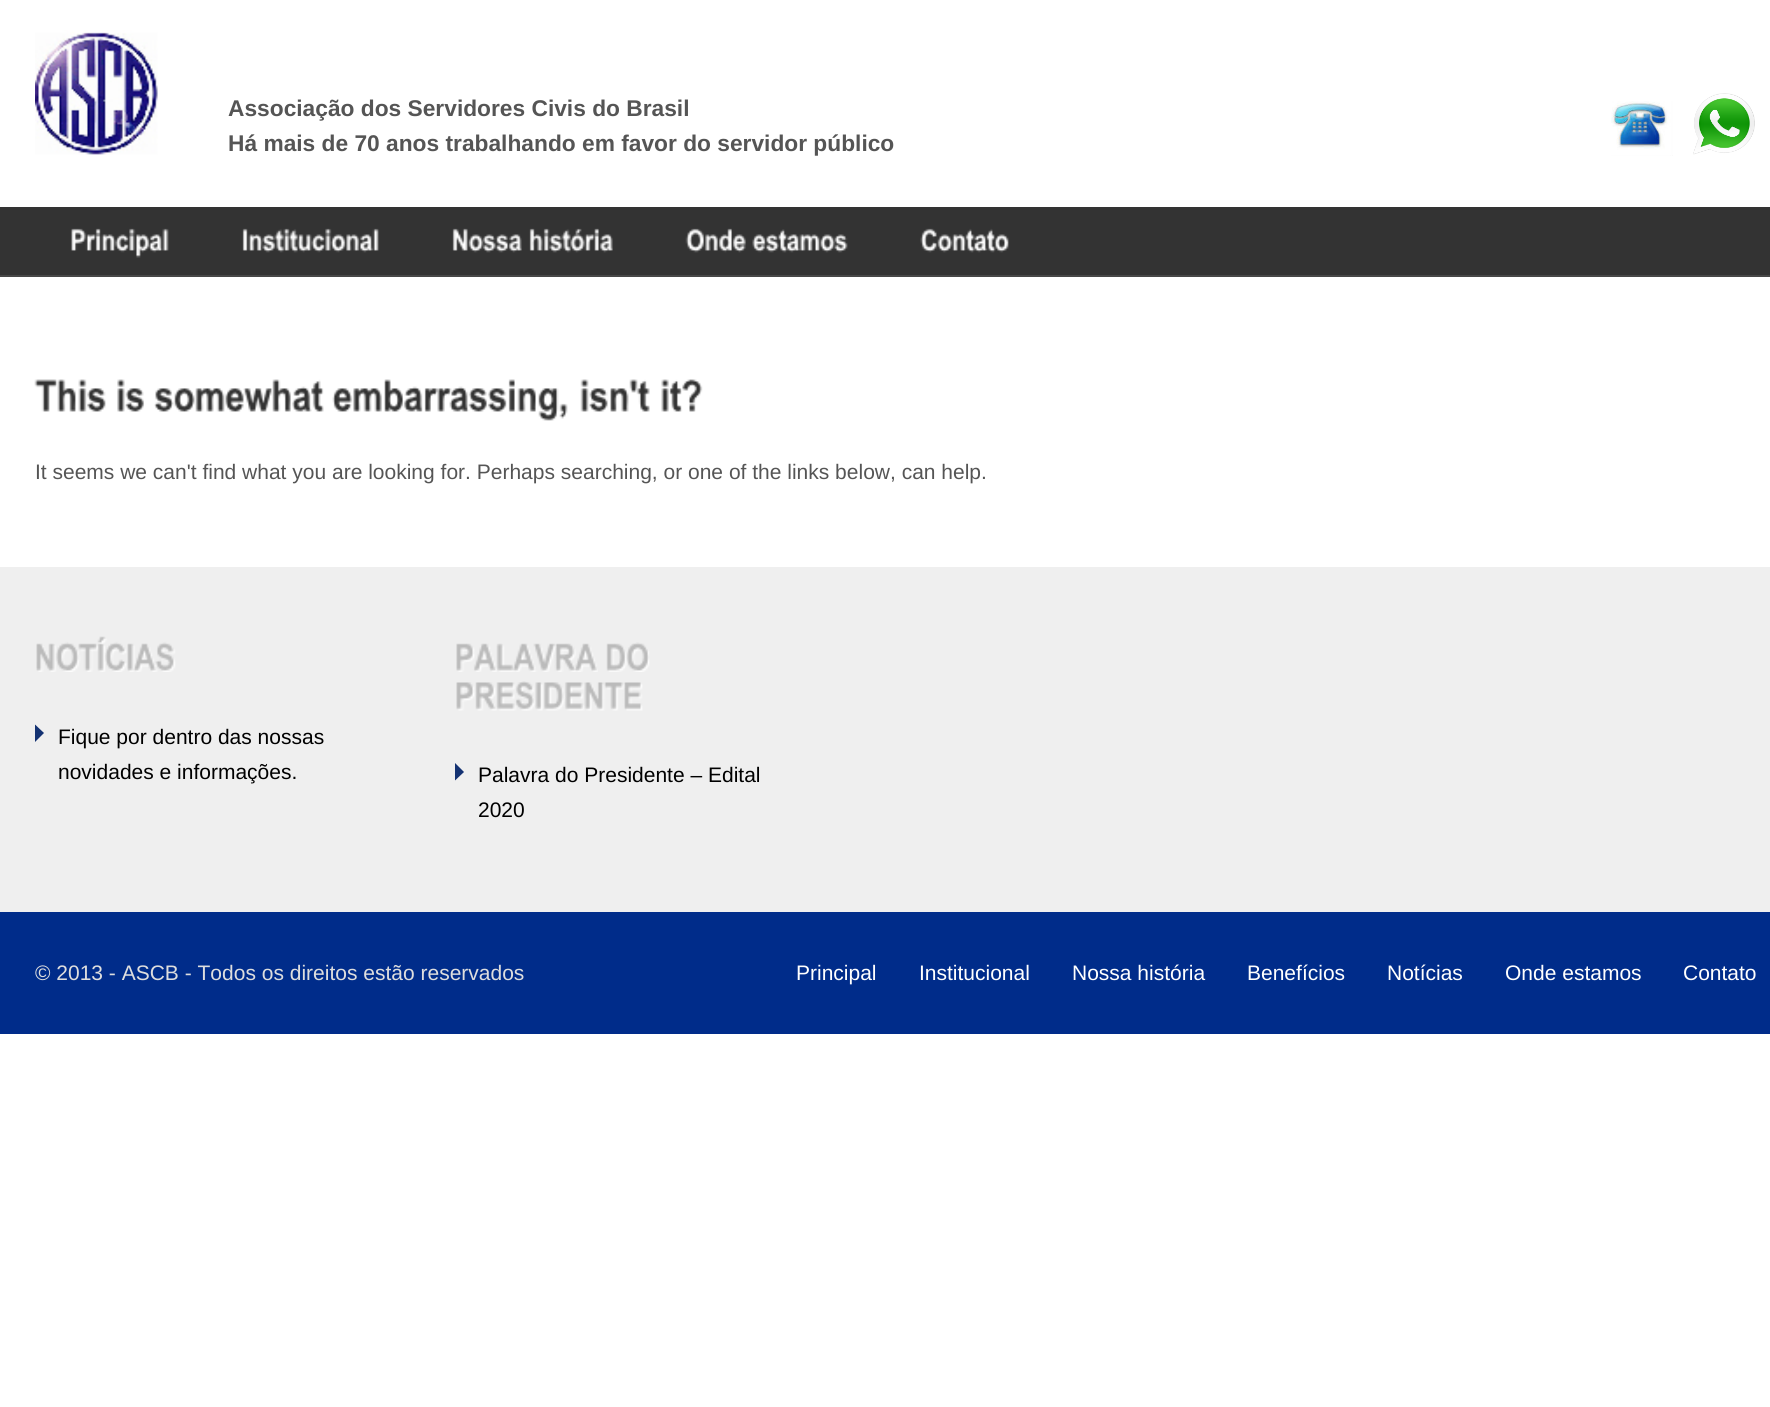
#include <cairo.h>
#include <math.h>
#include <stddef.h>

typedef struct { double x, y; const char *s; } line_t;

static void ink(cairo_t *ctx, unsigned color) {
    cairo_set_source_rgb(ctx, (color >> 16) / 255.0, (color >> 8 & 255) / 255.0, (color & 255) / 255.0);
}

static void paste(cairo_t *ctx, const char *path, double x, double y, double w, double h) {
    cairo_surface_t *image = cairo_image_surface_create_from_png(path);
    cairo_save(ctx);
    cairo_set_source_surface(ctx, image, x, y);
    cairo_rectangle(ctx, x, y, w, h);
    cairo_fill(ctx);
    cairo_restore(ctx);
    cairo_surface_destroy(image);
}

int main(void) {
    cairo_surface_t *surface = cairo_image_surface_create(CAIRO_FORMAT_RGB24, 1770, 1407);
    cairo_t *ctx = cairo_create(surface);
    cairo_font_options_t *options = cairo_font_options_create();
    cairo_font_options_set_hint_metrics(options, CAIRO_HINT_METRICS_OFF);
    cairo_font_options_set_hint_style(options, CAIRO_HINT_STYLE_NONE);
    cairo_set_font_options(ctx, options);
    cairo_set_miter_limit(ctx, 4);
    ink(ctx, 0xFFFFFF);
    cairo_paint(ctx);
    paste(ctx, "media/1.png", 35, 30, 123, 125);
    cairo_select_font_face(ctx, "Liberation Sans", CAIRO_FONT_SLANT_NORMAL, CAIRO_FONT_WEIGHT_BOLD);
    cairo_set_font_size(ctx, 22.75);
    ink(ctx, 0x555555);
    cairo_move_to(ctx, 228, 116);
    cairo_show_text(ctx, "Associação dos Servidores Civis do Brasil");
    cairo_move_to(ctx, 228, 151);
    cairo_show_text(ctx, "Há mais de 70 anos trabalhando em favor do servidor público");
    paste(ctx, "media/2.png", 1611, 101, 62, 55);
    paste(ctx, "media/3.png", 1693, 93, 62, 62);
    ink(ctx, 0x333333);
    cairo_rectangle(ctx, 0, 207, 1770, 68);
    cairo_fill(ctx);
    ink(ctx, 0x474747);
    cairo_rectangle(ctx, 0, 275, 1770, 2);
    cairo_fill(ctx);
    paste(ctx, "media/4.png", 71, 228, 98, 30);
    paste(ctx, "media/5.png", 242, 228, 137, 25);
    paste(ctx, "media/6.png", 452, 228, 70, 25);
    paste(ctx, "media/7.png", 529, 228, 84, 25);
    paste(ctx, "media/8.png", 685, 228, 61, 25);
    paste(ctx, "media/9.png", 752, 229, 96, 24);
    paste(ctx, "media/10.png", 920, 228, 89, 25);
    paste(ctx, "media/11.png", 34, 379, 72, 33);
    paste(ctx, "media/12.png", 117, 379, 27, 33);
    paste(ctx, "media/13.png", 154, 379, 170, 33);
    paste(ctx, "media/14.png", 332, 379, 236, 42);
    paste(ctx, "media/15.png", 580, 379, 70, 33);
    paste(ctx, "media/16.png", 661, 379, 42, 33);
    cairo_select_font_face(ctx, "Liberation Sans", CAIRO_FONT_SLANT_NORMAL, CAIRO_FONT_WEIGHT_NORMAL);
    cairo_set_font_size(ctx, 21);
    ink(ctx, 0x555555);
    cairo_move_to(ctx, 35, 479);
    cairo_show_text(ctx, "It seems we can't find what you are looking for. Perhaps searching, or one of the links below, can help.");
    ink(ctx, 0xEFEFEF);
    cairo_rectangle(ctx, 0, 567, 1770, 345);
    cairo_fill(ctx);
    paste(ctx, "media/17.png", 36, 636, 140, 36);
    ink(ctx, 0x143272);
    cairo_new_path(ctx);
    cairo_move_to(ctx, 35, 742);
    cairo_line_to(ctx, 35, 724.5);
    cairo_line_to(ctx, 44, 733);
    cairo_close_path(ctx);
    cairo_fill(ctx);
    ink(ctx, 0x000000);
    cairo_move_to(ctx, 58, 744);
    cairo_show_text(ctx, "Fique por dentro das nossas");
    cairo_move_to(ctx, 58, 779);
    cairo_show_text(ctx, "novidades e informações.");
    paste(ctx, "media/18.png", 456, 643, 142, 29);
    paste(ctx, "media/19.png", 606, 642, 44, 30);
    paste(ctx, "media/20.png", 456, 681, 187, 30);
    ink(ctx, 0x143272);
    cairo_new_path(ctx);
    cairo_move_to(ctx, 455, 780.5);
    cairo_line_to(ctx, 455, 763);
    cairo_line_to(ctx, 464, 772);
    cairo_close_path(ctx);
    cairo_fill(ctx);
    ink(ctx, 0x000000);
    cairo_move_to(ctx, 478, 782);
    cairo_show_text(ctx, "Palavra do Presidente – Edital");
    cairo_move_to(ctx, 478, 817);
    cairo_show_text(ctx, "2020");
    ink(ctx, 0x002C8A);
    cairo_rectangle(ctx, 0, 912, 1770, 122);
    cairo_fill(ctx);
    ink(ctx, 0xDEDEDE);
    cairo_move_to(ctx, 35, 980);
    cairo_show_text(ctx, "© 2013 - ASCB - Todos os direitos estão reservados");
    ink(ctx, 0xFFFFFF);
    {
        static const line_t items[] = {
            {796, 980, "Principal"},
            {919, 980, "Institucional"},
            {1072, 980, "Nossa história"},
            {1247, 980, "Benefícios"},
            {1387, 980, "Notícias"},
            {1505, 980, "Onde estamos"},
            {1683, 980, "Contato"},
        };
        for (size_t i = 0; i < sizeof items / sizeof *items; i++) {
            cairo_move_to(ctx, items[i].x, items[i].y);
            cairo_show_text(ctx, items[i].s);
        }
    }
    cairo_surface_write_to_png(surface, "image.png");
    cairo_font_options_destroy(options);
    cairo_destroy(ctx);
    cairo_surface_destroy(surface);
    return 0;
}
